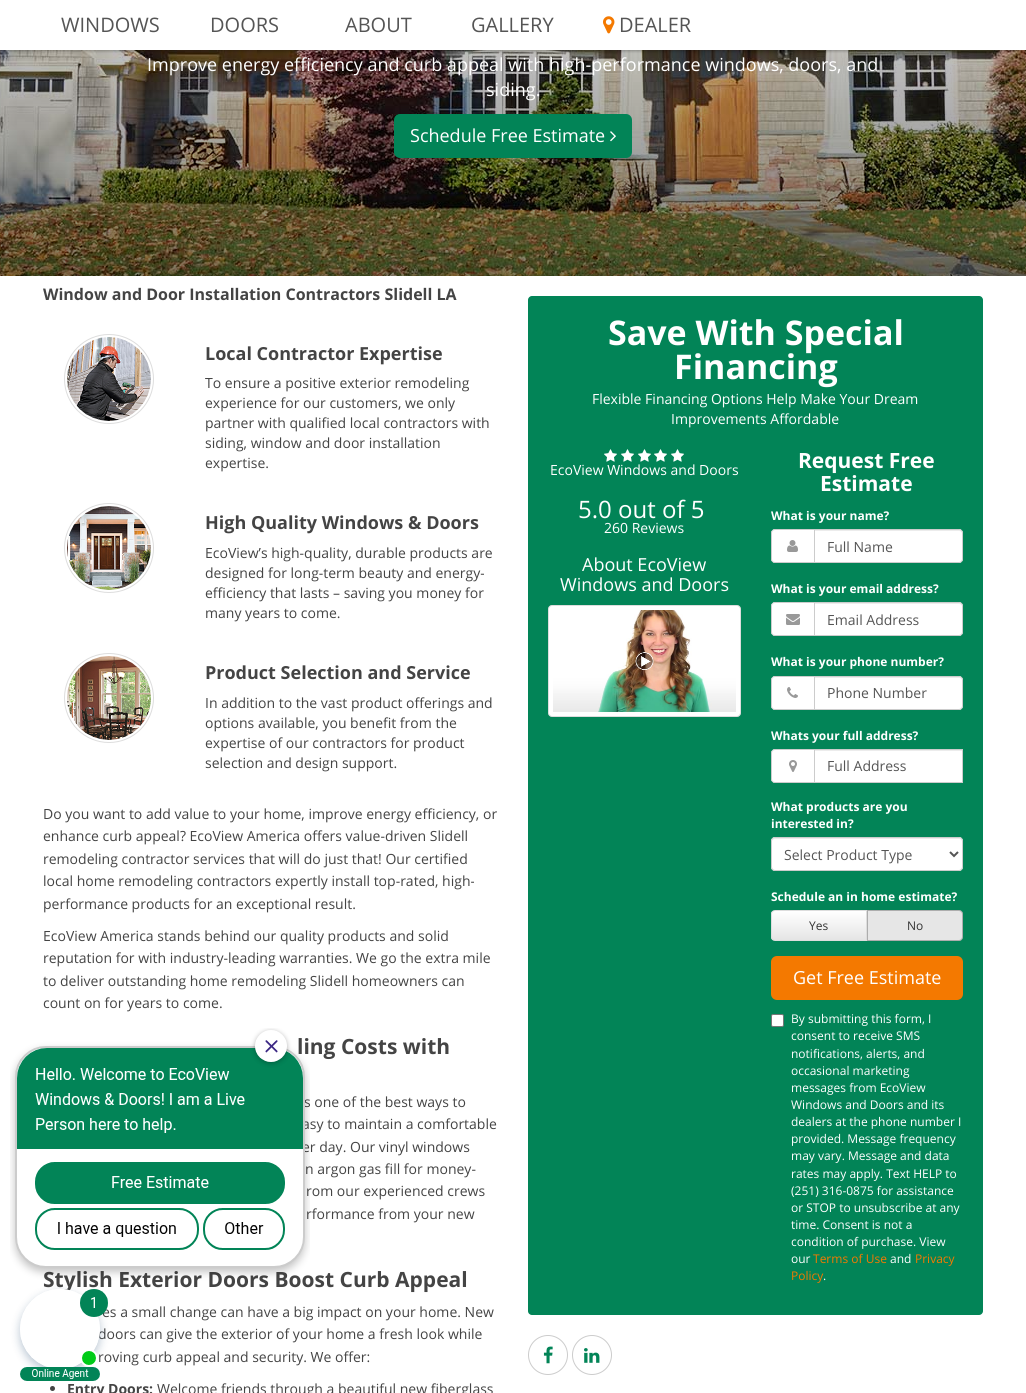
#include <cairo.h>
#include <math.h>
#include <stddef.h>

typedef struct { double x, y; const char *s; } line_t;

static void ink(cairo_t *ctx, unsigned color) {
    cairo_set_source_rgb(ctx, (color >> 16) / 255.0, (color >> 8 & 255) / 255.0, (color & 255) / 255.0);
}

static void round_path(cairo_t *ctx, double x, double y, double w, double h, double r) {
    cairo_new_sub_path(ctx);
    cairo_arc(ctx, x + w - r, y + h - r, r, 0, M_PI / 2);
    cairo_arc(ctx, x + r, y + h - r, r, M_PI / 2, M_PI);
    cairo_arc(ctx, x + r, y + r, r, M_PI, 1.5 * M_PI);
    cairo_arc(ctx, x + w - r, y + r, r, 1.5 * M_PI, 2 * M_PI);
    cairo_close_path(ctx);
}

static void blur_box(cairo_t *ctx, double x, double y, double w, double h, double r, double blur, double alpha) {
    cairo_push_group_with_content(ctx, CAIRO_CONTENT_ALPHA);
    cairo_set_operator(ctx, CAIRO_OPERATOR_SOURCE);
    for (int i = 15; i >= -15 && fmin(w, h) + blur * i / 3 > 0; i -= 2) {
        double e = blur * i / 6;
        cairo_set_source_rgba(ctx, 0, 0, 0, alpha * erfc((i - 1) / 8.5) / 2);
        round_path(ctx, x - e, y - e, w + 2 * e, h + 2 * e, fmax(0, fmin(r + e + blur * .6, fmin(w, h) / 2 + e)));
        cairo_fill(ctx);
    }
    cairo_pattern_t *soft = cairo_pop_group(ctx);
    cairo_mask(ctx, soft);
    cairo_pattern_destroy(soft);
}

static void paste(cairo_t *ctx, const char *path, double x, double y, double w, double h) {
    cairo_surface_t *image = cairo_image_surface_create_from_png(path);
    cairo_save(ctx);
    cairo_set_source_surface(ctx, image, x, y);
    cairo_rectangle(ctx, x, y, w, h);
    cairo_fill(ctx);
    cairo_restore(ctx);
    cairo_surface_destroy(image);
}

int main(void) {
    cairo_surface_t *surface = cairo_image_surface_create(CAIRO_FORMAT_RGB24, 1026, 1393);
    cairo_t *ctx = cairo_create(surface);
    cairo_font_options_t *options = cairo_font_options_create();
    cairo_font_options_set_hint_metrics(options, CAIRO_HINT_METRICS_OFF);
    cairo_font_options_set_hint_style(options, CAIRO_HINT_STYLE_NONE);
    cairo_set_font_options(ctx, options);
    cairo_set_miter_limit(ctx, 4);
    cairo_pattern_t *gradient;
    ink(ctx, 0xFFFFFF);
    cairo_paint(ctx);
    paste(ctx, "media/2.png", 0, 50, 1026, 226);
    ink(ctx, 0x000000);
    blur_box(ctx, 0, 1, 1026, 50, 0, 1.5, 0.3);
    ink(ctx, 0xFFFFFF);
    cairo_rectangle(ctx, 0, 0, 1026, 50);
    cairo_fill(ctx);
    cairo_select_font_face(ctx, "Open Sans", CAIRO_FONT_SLANT_NORMAL, CAIRO_FONT_WEIGHT_NORMAL);
    cairo_set_font_size(ctx, 20);
    ink(ctx, 0x555555);
    {
        static const line_t items[] = {
            {61, 32, "WINDOWS"},
            {210, 32, "DOORS"},
            {345, 32, "ABOUT"},
            {471, 32, "GALLERY"},
        };
        for (size_t i = 0; i < sizeof items / sizeof *items; i++) {
            cairo_move_to(ctx, items[i].x, items[i].y);
            cairo_show_text(ctx, items[i].s);
        }
    }
    paste(ctx, "media/1.png", 603, 16, 12, 18);
    cairo_move_to(ctx, 619, 32);
    cairo_show_text(ctx, "DEALER");
    cairo_set_font_size(ctx, 18);
    ink(ctx, 0xFFFFFF);
    cairo_move_to(ctx, 147, 71);
    cairo_show_text(ctx, "Improve energy efficiency and curb appeal with high-performance windows, doors, and");
    cairo_move_to(ctx, 486, 96);
    cairo_show_text(ctx, "siding.");
    ink(ctx, 0x028457);
    round_path(ctx, 394, 114, 238, 44, 6);
    cairo_fill(ctx);
    ink(ctx, 0xFFFFFF);
    cairo_move_to(ctx, 410, 142);
    cairo_show_text(ctx, "Schedule Free Estimate");
    paste(ctx, "media/3.png", 610, 131, 6, 11);
    cairo_select_font_face(ctx, "Open Sans", CAIRO_FONT_SLANT_NORMAL, CAIRO_FONT_WEIGHT_BOLD);
    cairo_set_font_size(ctx, 16);
    ink(ctx, 0x444444);
    cairo_move_to(ctx, 43, 300);
    cairo_show_text(ctx, "Window and Door Installation Contractors Slidell LA");
    cairo_new_path(ctx);
    cairo_arc(ctx, 109, 379, 44.5, 0, 2 * M_PI);
    ink(ctx, 0xDDDDDD);
    cairo_set_line_width(ctx, 1);
    cairo_stroke(ctx);
    paste(ctx, "media/4.png", 67, 337, 84, 84);
    cairo_set_font_size(ctx, 18);
    ink(ctx, 0x444444);
    cairo_move_to(ctx, 205, 360);
    cairo_show_text(ctx, "Local Contractor Expertise");
    cairo_select_font_face(ctx, "Open Sans", CAIRO_FONT_SLANT_NORMAL, CAIRO_FONT_WEIGHT_NORMAL);
    cairo_set_font_size(ctx, 14);
    {
        static const line_t items[] = {
            {205, 388, "To ensure a positive exterior remodeling"},
            {205, 408, "experience for our customers, we only"},
            {205, 428, "partner with qualified local contractors with"},
            {205, 448, "siding, window and door installation"},
            {205, 468, "expertise."},
        };
        for (size_t i = 0; i < sizeof items / sizeof *items; i++) {
            cairo_move_to(ctx, items[i].x, items[i].y);
            cairo_show_text(ctx, items[i].s);
        }
    }
    cairo_new_path(ctx);
    cairo_arc(ctx, 109, 548, 44.5, 0, 2 * M_PI);
    ink(ctx, 0xDDDDDD);
    cairo_stroke(ctx);
    paste(ctx, "media/5.png", 67, 506, 84, 84);
    cairo_select_font_face(ctx, "Open Sans", CAIRO_FONT_SLANT_NORMAL, CAIRO_FONT_WEIGHT_BOLD);
    cairo_set_font_size(ctx, 18);
    ink(ctx, 0x444444);
    cairo_move_to(ctx, 205, 529);
    cairo_show_text(ctx, "High Quality Windows & Doors");
    cairo_select_font_face(ctx, "Open Sans", CAIRO_FONT_SLANT_NORMAL, CAIRO_FONT_WEIGHT_NORMAL);
    cairo_set_font_size(ctx, 14);
    {
        static const line_t items[] = {
            {205, 558, "EcoView’s high-quality, durable products are"},
            {205, 578, "designed for long-term beauty and energy-"},
            {205, 598, "efficiency that lasts – saving you money for"},
            {205, 618, "many years to come."},
        };
        for (size_t i = 0; i < sizeof items / sizeof *items; i++) {
            cairo_move_to(ctx, items[i].x, items[i].y);
            cairo_show_text(ctx, items[i].s);
        }
    }
    cairo_new_path(ctx);
    cairo_arc(ctx, 109, 698, 44.5, 0, 2 * M_PI);
    ink(ctx, 0xDDDDDD);
    cairo_stroke(ctx);
    paste(ctx, "media/6.png", 67, 656, 84, 84);
    cairo_select_font_face(ctx, "Open Sans", CAIRO_FONT_SLANT_NORMAL, CAIRO_FONT_WEIGHT_BOLD);
    cairo_set_font_size(ctx, 18);
    ink(ctx, 0x444444);
    cairo_move_to(ctx, 205, 679);
    cairo_show_text(ctx, "Product Selection and Service");
    cairo_select_font_face(ctx, "Open Sans", CAIRO_FONT_SLANT_NORMAL, CAIRO_FONT_WEIGHT_NORMAL);
    cairo_set_font_size(ctx, 14);
    {
        static const line_t items[] = {
            {205, 708, "In addition to the vast product offerings and"},
            {205, 728, "options available, you benefit from the"},
            {205, 748, "expertise of our contractors for product"},
            {205, 768, "selection and design support."},
            {43, 819, "Do you want to add value to your home, improve energy efficiency, or"},
            {43, 841, "enhance curb appeal? EcoView America offers value-driven Slidell"},
            {43, 864, "remodeling contractor services that will do just that! Our certified"},
            {43, 886, "local home remodeling contractors expertly install top-rated, high-"},
            {43, 909, "performance products for an exceptional result."},
            {43, 941, "EcoView America stands behind our quality products and solid"},
            {43, 963, "reputation for with industry-leading warranties. We go the extra mile"},
            {43, 986, "to deliver outstanding home remodeling Slidell homeowners can"},
            {43, 1008, "count on for years to come."},
        };
        for (size_t i = 0; i < sizeof items / sizeof *items; i++) {
            cairo_move_to(ctx, items[i].x, items[i].y);
            cairo_show_text(ctx, items[i].s);
        }
    }
    cairo_select_font_face(ctx, "Open Sans", CAIRO_FONT_SLANT_NORMAL, CAIRO_FONT_WEIGHT_BOLD);
    cairo_set_font_size(ctx, 21);
    cairo_move_to(ctx, 297, 1054);
    cairo_show_text(ctx, "ling Costs with");
    cairo_select_font_face(ctx, "Open Sans", CAIRO_FONT_SLANT_NORMAL, CAIRO_FONT_WEIGHT_NORMAL);
    cairo_set_font_size(ctx, 14);
    {
        static const line_t items[] = {
            {304, 1107, "s one of the best ways to"},
            {302, 1129, "asy to maintain a comfortable"},
            {302, 1152, "er day. Our vinyl windows"},
            {305, 1174, "n argon gas fill for money-"},
            {306, 1196, "rom our experienced crews"},
            {306, 1219, "rformance from your new"},
        };
        for (size_t i = 0; i < sizeof items / sizeof *items; i++) {
            cairo_move_to(ctx, items[i].x, items[i].y);
            cairo_show_text(ctx, items[i].s);
        }
    }
    cairo_select_font_face(ctx, "Open Sans", CAIRO_FONT_SLANT_NORMAL, CAIRO_FONT_WEIGHT_BOLD);
    cairo_set_font_size(ctx, 21);
    cairo_move_to(ctx, 43, 1287);
    cairo_show_text(ctx, "Stylish Exterior Doors Boost Curb Appeal");
    cairo_select_font_face(ctx, "Open Sans", CAIRO_FONT_SLANT_NORMAL, CAIRO_FONT_WEIGHT_NORMAL);
    cairo_set_font_size(ctx, 14);
    {
        static const line_t items[] = {
            {102, 1317, "es a small change can have a big impact on your home. New"},
            {98, 1339, "doors can give the exterior of your home a fresh look while"},
            {98, 1362, "roving curb appeal and security. We offer:"},
        };
        for (size_t i = 0; i < sizeof items / sizeof *items; i++) {
            cairo_move_to(ctx, items[i].x, items[i].y);
            cairo_show_text(ctx, items[i].s);
        }
    }
    cairo_new_path(ctx);
    cairo_arc(ctx, 52.5, 1388.5, 2.5, 0, 2 * M_PI);
    cairo_fill(ctx);
    cairo_select_font_face(ctx, "Open Sans", CAIRO_FONT_SLANT_NORMAL, CAIRO_FONT_WEIGHT_BOLD);
    cairo_move_to(ctx, 67, 1394);
    cairo_show_text(ctx, "Entry Doors:");
    cairo_select_font_face(ctx, "Open Sans", CAIRO_FONT_SLANT_NORMAL, CAIRO_FONT_WEIGHT_NORMAL);
    cairo_move_to(ctx, 157, 1394);
    cairo_show_text(ctx, "Welcome friends through a beautiful new fiberglass");
    ink(ctx, 0x028457);
    round_path(ctx, 528, 296, 455, 1019, 4);
    cairo_fill(ctx);
    cairo_select_font_face(ctx, "Open Sans", CAIRO_FONT_SLANT_NORMAL, CAIRO_FONT_WEIGHT_BOLD);
    cairo_set_font_size(ctx, 34);
    ink(ctx, 0xFFFFFF);
    cairo_move_to(ctx, 608, 345);
    cairo_show_text(ctx, "Save With Special");
    cairo_move_to(ctx, 674, 379);
    cairo_show_text(ctx, "Financing");
    cairo_select_font_face(ctx, "Open Sans", CAIRO_FONT_SLANT_NORMAL, CAIRO_FONT_WEIGHT_NORMAL);
    cairo_set_font_size(ctx, 14);
    cairo_move_to(ctx, 592, 404);
    cairo_show_text(ctx, "Flexible Financing Options Help Make Your Dream");
    cairo_move_to(ctx, 671, 424);
    cairo_show_text(ctx, "Improvements Affordable");
    paste(ctx, "media/7.png", 604, 449, 13, 13);
    paste(ctx, "media/7.png", 621, 449, 13, 13);
    paste(ctx, "media/7.png", 638, 449, 13, 13);
    paste(ctx, "media/7.png", 654, 449, 13, 13);
    paste(ctx, "media/7.png", 671, 449, 13, 13);
    cairo_move_to(ctx, 550, 475);
    cairo_show_text(ctx, "EcoView Windows and Doors");
    cairo_set_font_size(ctx, 24);
    cairo_move_to(ctx, 578, 518);
    cairo_show_text(ctx, "5.0 out of 5");
    cairo_set_font_size(ctx, 14);
    cairo_move_to(ctx, 604, 533);
    cairo_show_text(ctx, "260 Reviews");
    cairo_set_font_size(ctx, 18);
    cairo_move_to(ctx, 582, 571);
    cairo_show_text(ctx, "About EcoView");
    cairo_move_to(ctx, 560, 591);
    cairo_show_text(ctx, "Windows and Doors");
    round_path(ctx, 548.5, 605.5, 192, 111, 3.5);
    cairo_fill_preserve(ctx);
    ink(ctx, 0xDDDDDD);
    cairo_stroke(ctx);
    paste(ctx, "media/8.png", 553, 610, 183, 102);
    cairo_select_font_face(ctx, "Open Sans", CAIRO_FONT_SLANT_NORMAL, CAIRO_FONT_WEIGHT_BOLD);
    cairo_set_font_size(ctx, 21);
    ink(ctx, 0xFFFFFF);
    cairo_move_to(ctx, 798, 468);
    cairo_show_text(ctx, "Request Free");
    cairo_move_to(ctx, 820, 491);
    cairo_show_text(ctx, "Estimate");
    cairo_set_font_size(ctx, 12);
    cairo_move_to(ctx, 771, 520);
    cairo_show_text(ctx, "What is your name?");
    cairo_new_path(ctx);
    cairo_move_to(ctx, 775, 529);
    cairo_line_to(ctx, 814, 529);
    cairo_line_to(ctx, 814, 563);
    cairo_line_to(ctx, 775, 563);
    cairo_curve_to(ctx, 773, 563, 771, 561, 771, 559);
    cairo_line_to(ctx, 771, 533);
    cairo_curve_to(ctx, 771, 531, 773, 529, 775, 529);
    cairo_close_path(ctx);
    cairo_fill(ctx);
    ink(ctx, 0xCCCCCC);
    cairo_set_fill_rule(ctx, CAIRO_FILL_RULE_EVEN_ODD);
    cairo_new_path(ctx);
    cairo_move_to(ctx, 775, 529);
    cairo_line_to(ctx, 814, 529);
    cairo_line_to(ctx, 814, 563);
    cairo_line_to(ctx, 775, 563);
    cairo_curve_to(ctx, 773, 563, 771, 561, 771, 559);
    cairo_line_to(ctx, 771, 533);
    cairo_curve_to(ctx, 771, 531, 773, 529, 775, 529);
    cairo_close_path(ctx);
    cairo_move_to(ctx, 775, 530);
    cairo_line_to(ctx, 814, 530);
    cairo_line_to(ctx, 814, 562);
    cairo_line_to(ctx, 775, 562);
    cairo_curve_to(ctx, 773, 562, 772, 561, 772, 559);
    cairo_line_to(ctx, 772, 533);
    cairo_curve_to(ctx, 772, 531, 773, 530, 775, 530);
    cairo_close_path(ctx);
    cairo_fill(ctx);
    paste(ctx, "media/9.png", 787, 540, 11, 12);
    ink(ctx, 0xFFFFFF);
    cairo_new_path(ctx);
    cairo_move_to(ctx, 814, 529);
    cairo_line_to(ctx, 959, 529);
    cairo_curve_to(ctx, 961, 529, 963, 531, 963, 533);
    cairo_line_to(ctx, 963, 559);
    cairo_curve_to(ctx, 963, 561, 961, 563, 959, 563);
    cairo_line_to(ctx, 814, 563);
    cairo_close_path(ctx);
    cairo_fill(ctx);
    ink(ctx, 0xECECEC);
    cairo_set_fill_rule(ctx, CAIRO_FILL_RULE_WINDING);
    cairo_new_path(ctx);
    cairo_move_to(ctx, 815, 531);
    cairo_line_to(ctx, 959, 531);
    cairo_curve_to(ctx, 961, 531, 962, 532, 962, 534);
    cairo_curve_to(ctx, 962, 532, 961, 530, 959, 530);
    cairo_line_to(ctx, 815, 530);
    cairo_close_path(ctx);
    cairo_fill(ctx);
    cairo_new_path(ctx);
    cairo_move_to(ctx, 814.5, 529.5);
    cairo_line_to(ctx, 959, 529.5);
    cairo_curve_to(ctx, 961, 529.5, 962.5, 531, 962.5, 533);
    cairo_line_to(ctx, 962.5, 559);
    cairo_curve_to(ctx, 962.5, 561, 961, 562.5, 959, 562.5);
    cairo_line_to(ctx, 814.5, 562.5);
    cairo_close_path(ctx);
    ink(ctx, 0xCCCCCC);
    cairo_stroke(ctx);
    cairo_select_font_face(ctx, "Open Sans", CAIRO_FONT_SLANT_NORMAL, CAIRO_FONT_WEIGHT_NORMAL);
    cairo_set_font_size(ctx, 14);
    ink(ctx, 0x555555);
    cairo_move_to(ctx, 827, 552);
    cairo_show_text(ctx, "Full Name");
    cairo_select_font_face(ctx, "Open Sans", CAIRO_FONT_SLANT_NORMAL, CAIRO_FONT_WEIGHT_BOLD);
    cairo_set_font_size(ctx, 12);
    ink(ctx, 0xFFFFFF);
    cairo_move_to(ctx, 771, 593);
    cairo_show_text(ctx, "What is your email address?");
    cairo_new_path(ctx);
    cairo_move_to(ctx, 775, 602);
    cairo_line_to(ctx, 814, 602);
    cairo_line_to(ctx, 814, 636);
    cairo_line_to(ctx, 775, 636);
    cairo_curve_to(ctx, 773, 636, 771, 634, 771, 632);
    cairo_line_to(ctx, 771, 606);
    cairo_curve_to(ctx, 771, 604, 773, 602, 775, 602);
    cairo_close_path(ctx);
    cairo_fill(ctx);
    ink(ctx, 0xCCCCCC);
    cairo_set_fill_rule(ctx, CAIRO_FILL_RULE_EVEN_ODD);
    cairo_new_path(ctx);
    cairo_move_to(ctx, 775, 602);
    cairo_line_to(ctx, 814, 602);
    cairo_line_to(ctx, 814, 636);
    cairo_line_to(ctx, 775, 636);
    cairo_curve_to(ctx, 773, 636, 771, 634, 771, 632);
    cairo_line_to(ctx, 771, 606);
    cairo_curve_to(ctx, 771, 604, 773, 602, 775, 602);
    cairo_close_path(ctx);
    cairo_move_to(ctx, 775, 603);
    cairo_line_to(ctx, 814, 603);
    cairo_line_to(ctx, 814, 635);
    cairo_line_to(ctx, 775, 635);
    cairo_curve_to(ctx, 773, 635, 772, 634, 772, 632);
    cairo_line_to(ctx, 772, 606);
    cairo_curve_to(ctx, 772, 604, 773, 603, 775, 603);
    cairo_close_path(ctx);
    cairo_fill(ctx);
    paste(ctx, "media/10.png", 786, 614, 14, 11);
    ink(ctx, 0xFFFFFF);
    cairo_new_path(ctx);
    cairo_move_to(ctx, 814, 602);
    cairo_line_to(ctx, 959, 602);
    cairo_curve_to(ctx, 961, 602, 963, 604, 963, 606);
    cairo_line_to(ctx, 963, 632);
    cairo_curve_to(ctx, 963, 634, 961, 636, 959, 636);
    cairo_line_to(ctx, 814, 636);
    cairo_close_path(ctx);
    cairo_fill(ctx);
    ink(ctx, 0xECECEC);
    cairo_set_fill_rule(ctx, CAIRO_FILL_RULE_WINDING);
    cairo_new_path(ctx);
    cairo_move_to(ctx, 815, 604);
    cairo_line_to(ctx, 959, 604);
    cairo_curve_to(ctx, 961, 604, 962, 605, 962, 607);
    cairo_curve_to(ctx, 962, 605, 961, 603, 959, 603);
    cairo_line_to(ctx, 815, 603);
    cairo_close_path(ctx);
    cairo_fill(ctx);
    cairo_new_path(ctx);
    cairo_move_to(ctx, 814.5, 602.5);
    cairo_line_to(ctx, 959, 602.5);
    cairo_curve_to(ctx, 961, 602.5, 962.5, 604, 962.5, 606);
    cairo_line_to(ctx, 962.5, 632);
    cairo_curve_to(ctx, 962.5, 634, 961, 635.5, 959, 635.5);
    cairo_line_to(ctx, 814.5, 635.5);
    cairo_close_path(ctx);
    ink(ctx, 0xCCCCCC);
    cairo_stroke(ctx);
    cairo_select_font_face(ctx, "Open Sans", CAIRO_FONT_SLANT_NORMAL, CAIRO_FONT_WEIGHT_NORMAL);
    cairo_set_font_size(ctx, 14);
    ink(ctx, 0x555555);
    cairo_move_to(ctx, 827, 625);
    cairo_show_text(ctx, "Email Address");
    cairo_select_font_face(ctx, "Open Sans", CAIRO_FONT_SLANT_NORMAL, CAIRO_FONT_WEIGHT_BOLD);
    cairo_set_font_size(ctx, 12);
    ink(ctx, 0xFFFFFF);
    cairo_move_to(ctx, 771, 666);
    cairo_show_text(ctx, "What is your phone number?");
    cairo_new_path(ctx);
    cairo_move_to(ctx, 775, 676);
    cairo_line_to(ctx, 814, 676);
    cairo_line_to(ctx, 814, 710);
    cairo_line_to(ctx, 775, 710);
    cairo_curve_to(ctx, 773, 710, 771, 708, 771, 706);
    cairo_line_to(ctx, 771, 680);
    cairo_curve_to(ctx, 771, 678, 773, 676, 775, 676);
    cairo_close_path(ctx);
    cairo_fill(ctx);
    ink(ctx, 0xCCCCCC);
    cairo_set_fill_rule(ctx, CAIRO_FILL_RULE_EVEN_ODD);
    cairo_new_path(ctx);
    cairo_move_to(ctx, 775, 676);
    cairo_line_to(ctx, 814, 676);
    cairo_line_to(ctx, 814, 710);
    cairo_line_to(ctx, 775, 710);
    cairo_curve_to(ctx, 773, 710, 771, 708, 771, 706);
    cairo_line_to(ctx, 771, 680);
    cairo_curve_to(ctx, 771, 678, 773, 676, 775, 676);
    cairo_close_path(ctx);
    cairo_move_to(ctx, 775, 677);
    cairo_line_to(ctx, 814, 677);
    cairo_line_to(ctx, 814, 709);
    cairo_line_to(ctx, 775, 709);
    cairo_curve_to(ctx, 773, 709, 772, 708, 772, 706);
    cairo_line_to(ctx, 772, 680);
    cairo_curve_to(ctx, 772, 678, 773, 677, 775, 677);
    cairo_close_path(ctx);
    cairo_fill(ctx);
    paste(ctx, "media/11.png", 787, 687, 11, 11);
    ink(ctx, 0xFFFFFF);
    cairo_new_path(ctx);
    cairo_move_to(ctx, 814, 676);
    cairo_line_to(ctx, 959, 676);
    cairo_curve_to(ctx, 961, 676, 963, 678, 963, 680);
    cairo_line_to(ctx, 963, 706);
    cairo_curve_to(ctx, 963, 708, 961, 710, 959, 710);
    cairo_line_to(ctx, 814, 710);
    cairo_close_path(ctx);
    cairo_fill(ctx);
    ink(ctx, 0xECECEC);
    cairo_set_fill_rule(ctx, CAIRO_FILL_RULE_WINDING);
    cairo_new_path(ctx);
    cairo_move_to(ctx, 815, 678);
    cairo_line_to(ctx, 959, 678);
    cairo_curve_to(ctx, 961, 678, 962, 679, 962, 681);
    cairo_curve_to(ctx, 962, 679, 961, 677, 959, 677);
    cairo_line_to(ctx, 815, 677);
    cairo_close_path(ctx);
    cairo_fill(ctx);
    cairo_new_path(ctx);
    cairo_move_to(ctx, 814.5, 676.5);
    cairo_line_to(ctx, 959, 676.5);
    cairo_curve_to(ctx, 961, 676.5, 962.5, 678, 962.5, 680);
    cairo_line_to(ctx, 962.5, 706);
    cairo_curve_to(ctx, 962.5, 708, 961, 709.5, 959, 709.5);
    cairo_line_to(ctx, 814.5, 709.5);
    cairo_close_path(ctx);
    ink(ctx, 0xCCCCCC);
    cairo_stroke(ctx);
    cairo_select_font_face(ctx, "Open Sans", CAIRO_FONT_SLANT_NORMAL, CAIRO_FONT_WEIGHT_NORMAL);
    cairo_set_font_size(ctx, 14);
    ink(ctx, 0x555555);
    cairo_move_to(ctx, 827, 698);
    cairo_show_text(ctx, "Phone Number");
    cairo_select_font_face(ctx, "Open Sans", CAIRO_FONT_SLANT_NORMAL, CAIRO_FONT_WEIGHT_BOLD);
    cairo_set_font_size(ctx, 12);
    ink(ctx, 0xFFFFFF);
    cairo_move_to(ctx, 771, 740);
    cairo_show_text(ctx, "Whats your full address?");
    cairo_new_path(ctx);
    cairo_move_to(ctx, 775, 749);
    cairo_line_to(ctx, 814, 749);
    cairo_line_to(ctx, 814, 783);
    cairo_line_to(ctx, 775, 783);
    cairo_curve_to(ctx, 773, 783, 771, 781, 771, 779);
    cairo_line_to(ctx, 771, 753);
    cairo_curve_to(ctx, 771, 751, 773, 749, 775, 749);
    cairo_close_path(ctx);
    cairo_fill(ctx);
    ink(ctx, 0xCCCCCC);
    cairo_set_fill_rule(ctx, CAIRO_FILL_RULE_EVEN_ODD);
    cairo_new_path(ctx);
    cairo_move_to(ctx, 775, 749);
    cairo_line_to(ctx, 814, 749);
    cairo_line_to(ctx, 814, 783);
    cairo_line_to(ctx, 775, 783);
    cairo_curve_to(ctx, 773, 783, 771, 781, 771, 779);
    cairo_line_to(ctx, 771, 753);
    cairo_curve_to(ctx, 771, 751, 773, 749, 775, 749);
    cairo_close_path(ctx);
    cairo_move_to(ctx, 775, 750);
    cairo_line_to(ctx, 814, 750);
    cairo_line_to(ctx, 814, 782);
    cairo_line_to(ctx, 775, 782);
    cairo_curve_to(ctx, 773, 782, 772, 781, 772, 779);
    cairo_line_to(ctx, 772, 753);
    cairo_curve_to(ctx, 772, 751, 773, 750, 775, 750);
    cairo_close_path(ctx);
    cairo_fill(ctx);
    paste(ctx, "media/12.png", 789, 760, 8, 12);
    ink(ctx, 0xFFFFFF);
    cairo_rectangle(ctx, 815, 751, 147, 31);
    cairo_fill(ctx);
    ink(ctx, 0xECECEC);
    cairo_rectangle(ctx, 815, 750, 147, 1);
    cairo_fill(ctx);
    cairo_rectangle(ctx, 814.5, 749.5, 148, 33);
    ink(ctx, 0xCCCCCC);
    cairo_stroke(ctx);
    cairo_select_font_face(ctx, "Open Sans", CAIRO_FONT_SLANT_NORMAL, CAIRO_FONT_WEIGHT_NORMAL);
    cairo_set_font_size(ctx, 14);
    ink(ctx, 0x555555);
    cairo_move_to(ctx, 827, 771);
    cairo_show_text(ctx, "Full Address");
    cairo_select_font_face(ctx, "Open Sans", CAIRO_FONT_SLANT_NORMAL, CAIRO_FONT_WEIGHT_BOLD);
    cairo_set_font_size(ctx, 12);
    ink(ctx, 0xFFFFFF);
    cairo_move_to(ctx, 771, 811);
    cairo_show_text(ctx, "What products are you");
    cairo_move_to(ctx, 771, 828);
    cairo_show_text(ctx, "interested in?");
    round_path(ctx, 771, 837, 192, 34, 4);
    cairo_fill(ctx);
    ink(ctx, 0xECECEC);
    cairo_set_fill_rule(ctx, CAIRO_FILL_RULE_WINDING);
    cairo_new_path(ctx);
    cairo_move_to(ctx, 775, 839);
    cairo_line_to(ctx, 959, 839);
    cairo_curve_to(ctx, 961, 839, 962, 840, 962, 842);
    cairo_curve_to(ctx, 962, 840, 961, 838, 959, 838);
    cairo_line_to(ctx, 775, 838);
    cairo_curve_to(ctx, 773, 838, 772, 840, 772, 842);
    cairo_curve_to(ctx, 772, 840, 773, 839, 775, 839);
    cairo_close_path(ctx);
    cairo_fill(ctx);
    round_path(ctx, 771.5, 837.5, 191, 33, 3.5);
    ink(ctx, 0xCCCCCC);
    cairo_stroke(ctx);
    cairo_new_path(ctx);
    cairo_move_to(ctx, 950, 852);
    cairo_line_to(ctx, 954, 856);
    cairo_line_to(ctx, 958, 852);
    ink(ctx, 0x555555);
    cairo_set_line_width(ctx, 2);
    cairo_stroke(ctx);
    cairo_select_font_face(ctx, "Open Sans", CAIRO_FONT_SLANT_NORMAL, CAIRO_FONT_WEIGHT_NORMAL);
    cairo_set_font_size(ctx, 14);
    cairo_move_to(ctx, 784, 860);
    cairo_show_text(ctx, "Select Product Type");
    cairo_select_font_face(ctx, "Open Sans", CAIRO_FONT_SLANT_NORMAL, CAIRO_FONT_WEIGHT_BOLD);
    cairo_set_font_size(ctx, 12);
    ink(ctx, 0xFFFFFF);
    cairo_move_to(ctx, 771, 901);
    cairo_show_text(ctx, "Schedule an in home estimate?");
    cairo_save(ctx);
    cairo_new_path(ctx);
    cairo_move_to(ctx, 775, 910);
    cairo_line_to(ctx, 867, 910);
    cairo_line_to(ctx, 867, 941);
    cairo_line_to(ctx, 775, 941);
    cairo_curve_to(ctx, 773, 941, 771, 939, 771, 937);
    cairo_line_to(ctx, 771, 914);
    cairo_curve_to(ctx, 771, 912, 773, 910, 775, 910);
    cairo_close_path(ctx);
    cairo_clip(ctx);
    gradient = cairo_pattern_create_linear(819, 911, 819, 940);
    cairo_pattern_add_color_stop_rgba(gradient, 0, 1, 1, 1, 1);
    cairo_pattern_add_color_stop_rgba(gradient, 1, 0.898, 0.898, 0.898, 1);
    cairo_set_source(ctx, gradient);
    cairo_pattern_destroy(gradient);
    cairo_rectangle(ctx, 771, 911, 95, 29);
    cairo_fill(ctx);
    cairo_restore(ctx);
    cairo_new_path(ctx);
    cairo_move_to(ctx, 775, 910.5);
    cairo_line_to(ctx, 866.5, 910.5);
    cairo_line_to(ctx, 866.5, 940.5);
    cairo_line_to(ctx, 775, 940.5);
    cairo_curve_to(ctx, 773, 940.5, 771.5, 939, 771.5, 937);
    cairo_line_to(ctx, 771.5, 914);
    cairo_curve_to(ctx, 771.5, 912, 773, 910.5, 775, 910.5);
    cairo_close_path(ctx);
    ink(ctx, 0xDDDDDD);
    cairo_set_line_width(ctx, 1);
    cairo_stroke(ctx);
    cairo_select_font_face(ctx, "Open Sans", CAIRO_FONT_SLANT_NORMAL, CAIRO_FONT_WEIGHT_NORMAL);
    ink(ctx, 0x333333);
    cairo_move_to(ctx, 809, 930);
    cairo_show_text(ctx, "Yes");
    ink(ctx, 0xE6E6E6);
    cairo_new_path(ctx);
    cairo_move_to(ctx, 867.5, 910.5);
    cairo_line_to(ctx, 959, 910.5);
    cairo_curve_to(ctx, 961, 910.5, 962.5, 912, 962.5, 914);
    cairo_line_to(ctx, 962.5, 937);
    cairo_curve_to(ctx, 962.5, 939, 961, 940.5, 959, 940.5);
    cairo_line_to(ctx, 867.5, 940.5);
    cairo_close_path(ctx);
    cairo_fill_preserve(ctx);
    ink(ctx, 0xADADAD);
    cairo_stroke(ctx);
    ink(ctx, 0x333333);
    cairo_move_to(ctx, 907, 930);
    cairo_show_text(ctx, "No");
    ink(ctx, 0xF47900);
    round_path(ctx, 771, 956, 192, 44, 6);
    cairo_fill(ctx);
    cairo_set_font_size(ctx, 18);
    ink(ctx, 0xFFFFFF);
    cairo_move_to(ctx, 793, 984);
    cairo_show_text(ctx, "Get Free Estimate");
    round_path(ctx, 771.5, 1014.5, 12, 12, 1.5);
    cairo_fill_preserve(ctx);
    ink(ctx, 0x767676);
    cairo_stroke(ctx);
    cairo_set_font_size(ctx, 12);
    ink(ctx, 0xFFFFFF);
    {
        static const line_t items[] = {
            {791, 1023, "By submitting this form, I"},
            {791, 1040, "consent to receive SMS"},
            {791, 1058, "notifications, alerts, and"},
            {791, 1075, "occasional marketing"},
            {791, 1092, "messages from EcoView"},
            {791, 1109, "Windows and Doors and its"},
            {791, 1126, "dealers at the phone number I"},
            {791, 1143, "provided. Message frequency"},
            {791, 1160, "may vary. Message and data"},
            {791, 1178, "rates may apply. Text HELP to"},
            {791, 1195, "(251) 316-0875 for assistance"},
            {791, 1212, "or STOP to unsubscribe at any"},
            {791, 1229, "time. Consent is not a"},
            {791, 1246, "condition of purchase. View"},
            {791, 1263, "our"},
        };
        for (size_t i = 0; i < sizeof items / sizeof *items; i++) {
            cairo_move_to(ctx, items[i].x, items[i].y);
            cairo_show_text(ctx, items[i].s);
        }
    }
    ink(ctx, 0xF47900);
    cairo_move_to(ctx, 813, 1263);
    cairo_show_text(ctx, "Terms of Use");
    ink(ctx, 0xFFFFFF);
    cairo_move_to(ctx, 890, 1263);
    cairo_show_text(ctx, "and");
    ink(ctx, 0xF47900);
    cairo_move_to(ctx, 915, 1263);
    cairo_show_text(ctx, "Privacy");
    cairo_move_to(ctx, 791, 1280);
    cairo_show_text(ctx, "Policy");
    ink(ctx, 0xFFFFFF);
    cairo_move_to(ctx, 823, 1280);
    cairo_show_text(ctx, ".");
    cairo_new_path(ctx);
    cairo_arc(ctx, 548, 1355, 19.5, 0, 2 * M_PI);
    ink(ctx, 0xCCCCCC);
    cairo_stroke(ctx);
    paste(ctx, "media/13.png", 543, 1346, 10, 18);
    cairo_arc(ctx, 592, 1355, 19.5, 0, 2 * M_PI);
    cairo_stroke(ctx);
    paste(ctx, "media/14.png", 584, 1348, 16, 15);
    paste(ctx, "media/15.png", 10, 1028, 300, 353);
    cairo_surface_write_to_png(surface, "image.png");
    cairo_font_options_destroy(options);
    cairo_destroy(ctx);
    cairo_surface_destroy(surface);
    return 0;
}
